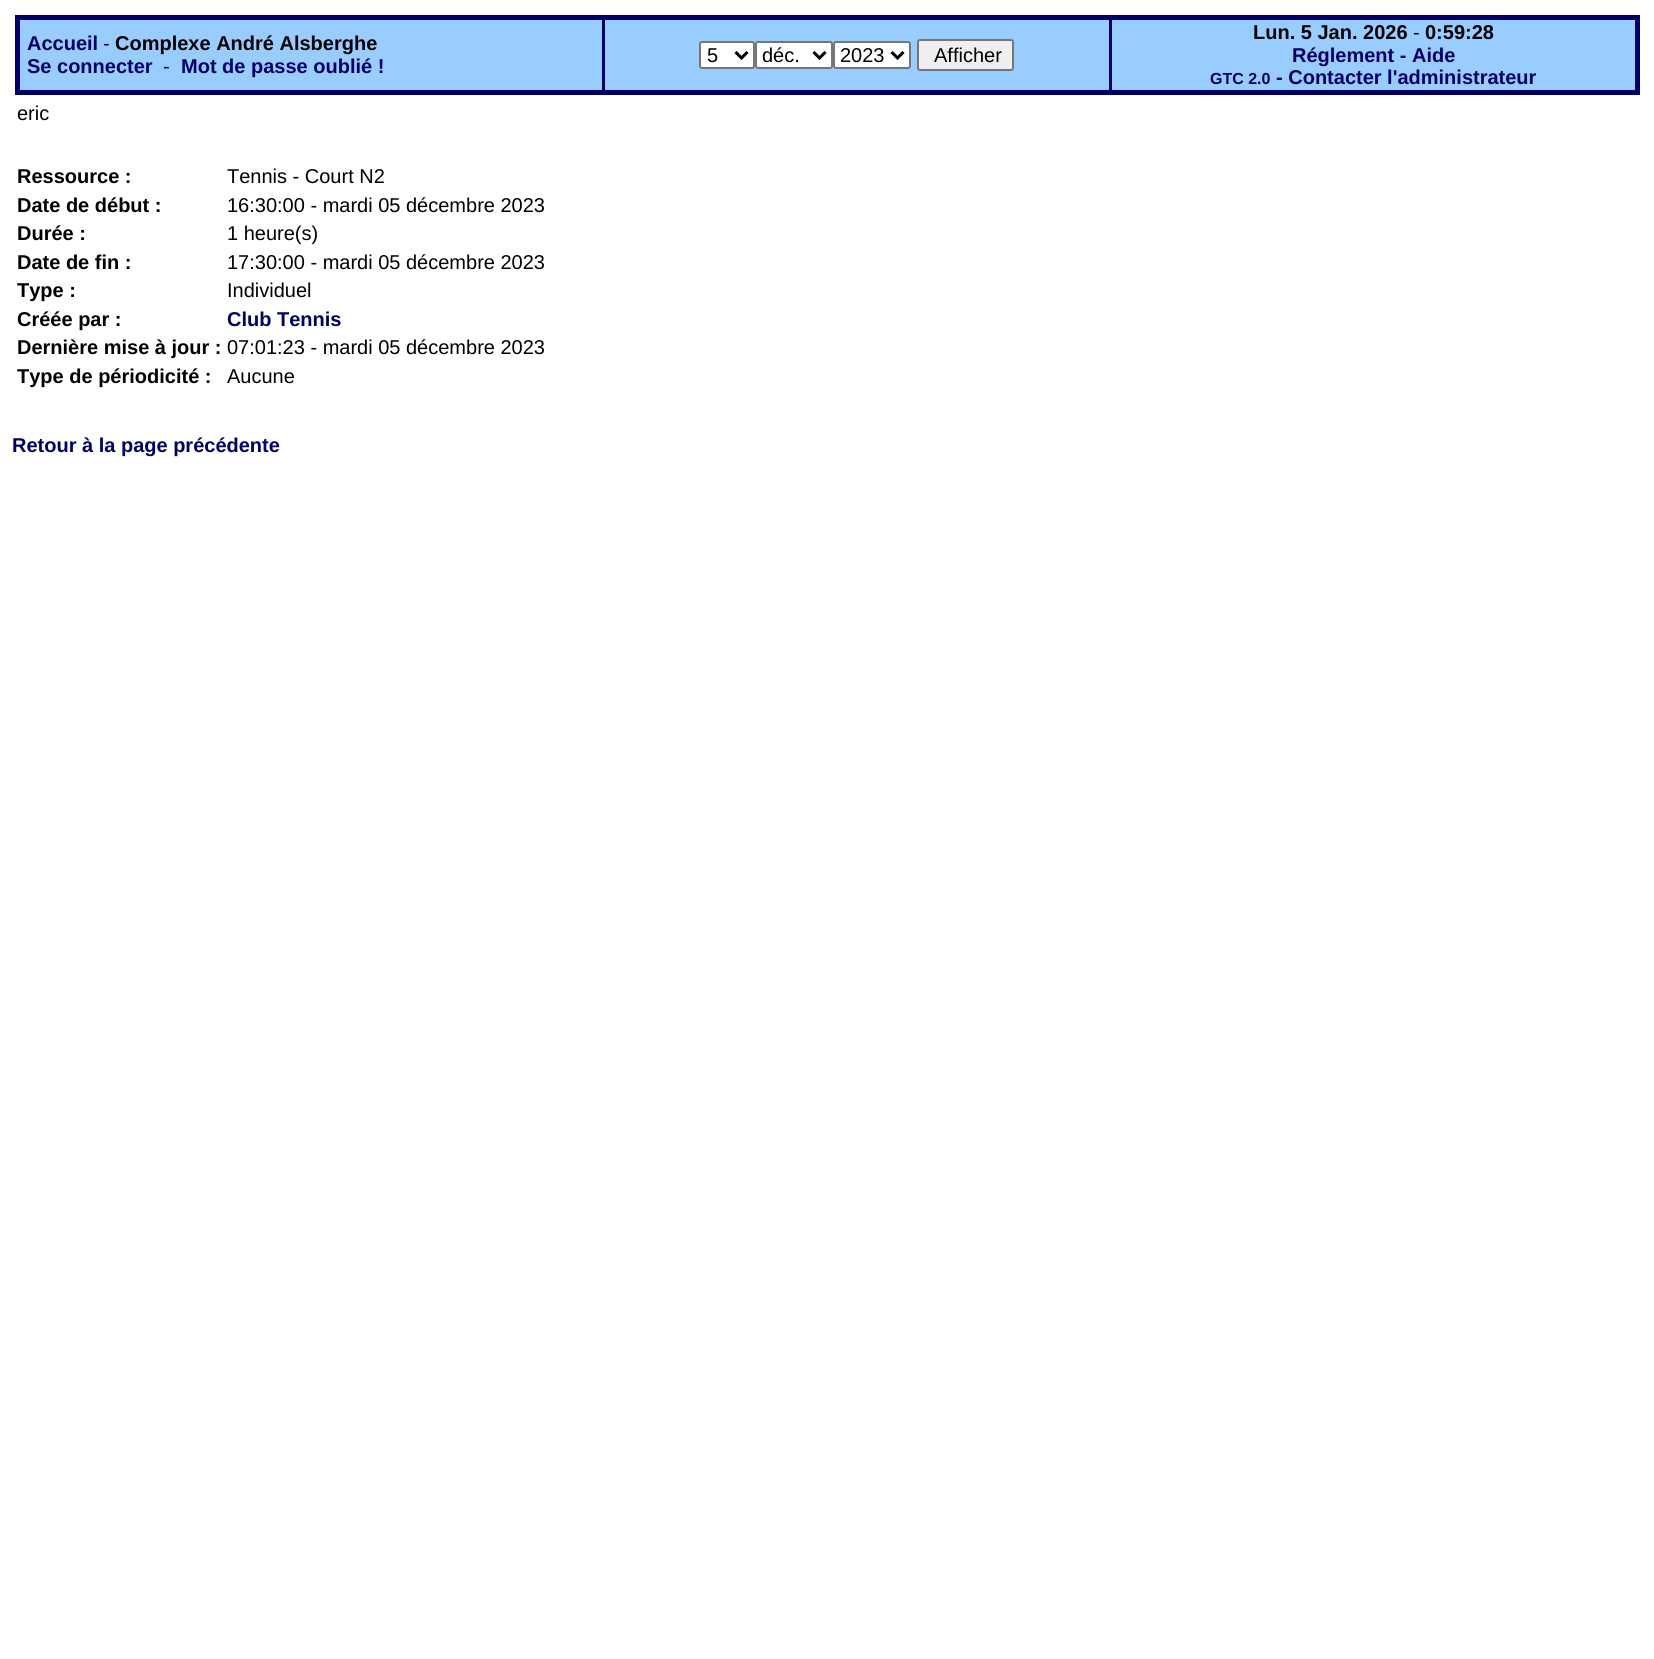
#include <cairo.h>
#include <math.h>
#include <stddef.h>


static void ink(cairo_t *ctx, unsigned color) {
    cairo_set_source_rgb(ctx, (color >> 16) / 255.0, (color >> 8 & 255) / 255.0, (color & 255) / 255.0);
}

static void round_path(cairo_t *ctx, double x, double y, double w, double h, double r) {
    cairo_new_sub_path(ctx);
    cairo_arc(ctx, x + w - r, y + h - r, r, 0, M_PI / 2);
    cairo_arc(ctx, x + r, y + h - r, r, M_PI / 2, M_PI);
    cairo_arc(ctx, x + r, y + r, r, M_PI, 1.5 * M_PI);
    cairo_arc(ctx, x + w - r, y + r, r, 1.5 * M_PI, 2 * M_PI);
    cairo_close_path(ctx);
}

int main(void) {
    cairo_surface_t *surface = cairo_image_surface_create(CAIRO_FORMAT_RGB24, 1654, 1659);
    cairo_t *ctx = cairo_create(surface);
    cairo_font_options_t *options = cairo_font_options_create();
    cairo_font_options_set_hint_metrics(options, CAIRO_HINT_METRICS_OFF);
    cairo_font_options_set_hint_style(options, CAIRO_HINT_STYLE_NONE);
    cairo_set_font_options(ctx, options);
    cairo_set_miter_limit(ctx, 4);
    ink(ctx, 0xFFFFFF);
    cairo_paint(ctx);
    ink(ctx, 0x000066);
    cairo_rectangle(ctx, 15, 15, 1625, 80);
    cairo_fill(ctx);
    ink(ctx, 0x99CCFF);
    cairo_rectangle(ctx, 20, 20, 582, 70);
    cairo_fill(ctx);
    cairo_select_font_face(ctx, "Liberation Sans", CAIRO_FONT_SLANT_NORMAL, CAIRO_FONT_WEIGHT_BOLD);
    cairo_set_font_size(ctx, 20);
    ink(ctx, 0x000066);
    cairo_move_to(ctx, 27, 50);
    cairo_show_text(ctx, "Accueil");
    cairo_select_font_face(ctx, "Liberation Sans", CAIRO_FONT_SLANT_NORMAL, CAIRO_FONT_WEIGHT_NORMAL);
    ink(ctx, 0x000000);
    cairo_move_to(ctx, 103, 50);
    cairo_show_text(ctx, "-");
    cairo_select_font_face(ctx, "Liberation Sans", CAIRO_FONT_SLANT_NORMAL, CAIRO_FONT_WEIGHT_BOLD);
    cairo_move_to(ctx, 115, 50);
    cairo_show_text(ctx, "Complexe André Alsberghe");
    ink(ctx, 0x000066);
    cairo_move_to(ctx, 27, 73);
    cairo_show_text(ctx, "Se connecter");
    cairo_select_font_face(ctx, "Liberation Sans", CAIRO_FONT_SLANT_NORMAL, CAIRO_FONT_WEIGHT_NORMAL);
    ink(ctx, 0x000000);
    cairo_move_to(ctx, 163, 73);
    cairo_show_text(ctx, "-");
    cairo_select_font_face(ctx, "Liberation Sans", CAIRO_FONT_SLANT_NORMAL, CAIRO_FONT_WEIGHT_BOLD);
    ink(ctx, 0x000066);
    cairo_move_to(ctx, 181, 73);
    cairo_show_text(ctx, "Mot de passe oublié !");
    ink(ctx, 0x99CCFF);
    cairo_rectangle(ctx, 605, 20, 504, 70);
    cairo_fill(ctx);
    ink(ctx, 0xFFFFFF);
    round_path(ctx, 700, 42, 54, 26, 2);
    cairo_fill_preserve(ctx);
    ink(ctx, 0x767676);
    cairo_stroke(ctx);
    cairo_new_path(ctx);
    cairo_move_to(ctx, 735.5, 52);
    cairo_line_to(ctx, 741.5, 58);
    cairo_line_to(ctx, 747.5, 52);
    ink(ctx, 0x000000);
    cairo_set_line_width(ctx, 3);
    cairo_stroke(ctx);
    cairo_select_font_face(ctx, "Liberation Sans", CAIRO_FONT_SLANT_NORMAL, CAIRO_FONT_WEIGHT_NORMAL);
    cairo_move_to(ctx, 707, 62);
    cairo_show_text(ctx, "5");
    ink(ctx, 0xFFFFFF);
    round_path(ctx, 756, 42, 76, 26, 2);
    cairo_fill_preserve(ctx);
    ink(ctx, 0x767676);
    cairo_set_line_width(ctx, 2);
    cairo_stroke(ctx);
    cairo_new_path(ctx);
    cairo_move_to(ctx, 813.5, 52);
    cairo_line_to(ctx, 819.5, 58);
    cairo_line_to(ctx, 825.5, 52);
    ink(ctx, 0x000000);
    cairo_set_line_width(ctx, 3);
    cairo_stroke(ctx);
    cairo_move_to(ctx, 762, 62);
    cairo_show_text(ctx, "déc.");
    ink(ctx, 0xFFFFFF);
    round_path(ctx, 834, 42, 76, 26, 2);
    cairo_fill_preserve(ctx);
    ink(ctx, 0x767676);
    cairo_set_line_width(ctx, 2);
    cairo_stroke(ctx);
    cairo_new_path(ctx);
    cairo_move_to(ctx, 891.5, 52);
    cairo_line_to(ctx, 897.5, 58);
    cairo_line_to(ctx, 903.5, 52);
    ink(ctx, 0x000000);
    cairo_set_line_width(ctx, 3);
    cairo_stroke(ctx);
    cairo_move_to(ctx, 840, 62);
    cairo_show_text(ctx, "2023");
    ink(ctx, 0xEFEFEF);
    round_path(ctx, 918, 40, 95, 30, 2);
    cairo_fill_preserve(ctx);
    ink(ctx, 0x767676);
    cairo_set_line_width(ctx, 2);
    cairo_stroke(ctx);
    ink(ctx, 0x000000);
    cairo_move_to(ctx, 934, 62);
    cairo_show_text(ctx, "Afficher");
    ink(ctx, 0x99CCFF);
    cairo_rectangle(ctx, 1112, 20, 523, 70);
    cairo_fill(ctx);
    cairo_select_font_face(ctx, "Liberation Sans", CAIRO_FONT_SLANT_NORMAL, CAIRO_FONT_WEIGHT_BOLD);
    ink(ctx, 0x000000);
    cairo_move_to(ctx, 1253, 39);
    cairo_show_text(ctx, "Lun. 5 Jan. 2026");
    cairo_select_font_face(ctx, "Liberation Sans", CAIRO_FONT_SLANT_NORMAL, CAIRO_FONT_WEIGHT_NORMAL);
    cairo_move_to(ctx, 1413, 39);
    cairo_show_text(ctx, "-");
    cairo_select_font_face(ctx, "Liberation Sans", CAIRO_FONT_SLANT_NORMAL, CAIRO_FONT_WEIGHT_BOLD);
    cairo_move_to(ctx, 1425, 39);
    cairo_show_text(ctx, "0:59:28");
    ink(ctx, 0x000066);
    cairo_move_to(ctx, 1292, 62);
    cairo_show_text(ctx, "Réglement - Aide");
    cairo_set_font_size(ctx, 16);
    cairo_move_to(ctx, 1210, 84);
    cairo_show_text(ctx, "GTC 2.0");
    cairo_set_font_size(ctx, 20);
    cairo_move_to(ctx, 1276, 84);
    cairo_show_text(ctx, "- Contacter l'administrateur");
    cairo_select_font_face(ctx, "Liberation Sans", CAIRO_FONT_SLANT_NORMAL, CAIRO_FONT_WEIGHT_NORMAL);
    ink(ctx, 0x000000);
    cairo_move_to(ctx, 17, 120);
    cairo_show_text(ctx, "eric");
    cairo_select_font_face(ctx, "Liberation Sans", CAIRO_FONT_SLANT_NORMAL, CAIRO_FONT_WEIGHT_BOLD);
    cairo_move_to(ctx, 17, 183);
    cairo_show_text(ctx, "Ressource :");
    cairo_select_font_face(ctx, "Liberation Sans", CAIRO_FONT_SLANT_NORMAL, CAIRO_FONT_WEIGHT_NORMAL);
    cairo_move_to(ctx, 227, 183);
    cairo_show_text(ctx, "Tennis - Court N2");
    cairo_select_font_face(ctx, "Liberation Sans", CAIRO_FONT_SLANT_NORMAL, CAIRO_FONT_WEIGHT_BOLD);
    cairo_move_to(ctx, 17, 212);
    cairo_show_text(ctx, "Date de début :");
    cairo_select_font_face(ctx, "Liberation Sans", CAIRO_FONT_SLANT_NORMAL, CAIRO_FONT_WEIGHT_NORMAL);
    cairo_move_to(ctx, 227, 212);
    cairo_show_text(ctx, "16:30:00 - mardi 05 décembre 2023");
    cairo_select_font_face(ctx, "Liberation Sans", CAIRO_FONT_SLANT_NORMAL, CAIRO_FONT_WEIGHT_BOLD);
    cairo_move_to(ctx, 17, 240);
    cairo_show_text(ctx, "Durée :");
    cairo_select_font_face(ctx, "Liberation Sans", CAIRO_FONT_SLANT_NORMAL, CAIRO_FONT_WEIGHT_NORMAL);
    cairo_move_to(ctx, 227, 240);
    cairo_show_text(ctx, "1 heure(s)");
    cairo_select_font_face(ctx, "Liberation Sans", CAIRO_FONT_SLANT_NORMAL, CAIRO_FONT_WEIGHT_BOLD);
    cairo_move_to(ctx, 17, 269);
    cairo_show_text(ctx, "Date de fin :");
    cairo_select_font_face(ctx, "Liberation Sans", CAIRO_FONT_SLANT_NORMAL, CAIRO_FONT_WEIGHT_NORMAL);
    cairo_move_to(ctx, 227, 269);
    cairo_show_text(ctx, "17:30:00 - mardi 05 décembre 2023");
    cairo_select_font_face(ctx, "Liberation Sans", CAIRO_FONT_SLANT_NORMAL, CAIRO_FONT_WEIGHT_BOLD);
    cairo_move_to(ctx, 17, 297);
    cairo_show_text(ctx, "Type :");
    cairo_select_font_face(ctx, "Liberation Sans", CAIRO_FONT_SLANT_NORMAL, CAIRO_FONT_WEIGHT_NORMAL);
    cairo_move_to(ctx, 227, 297);
    cairo_show_text(ctx, "Individuel");
    cairo_select_font_face(ctx, "Liberation Sans", CAIRO_FONT_SLANT_NORMAL, CAIRO_FONT_WEIGHT_BOLD);
    cairo_move_to(ctx, 17, 326);
    cairo_show_text(ctx, "Créée par :");
    ink(ctx, 0x000066);
    cairo_move_to(ctx, 227, 326);
    cairo_show_text(ctx, "Club Tennis");
    ink(ctx, 0x000000);
    cairo_move_to(ctx, 17, 354);
    cairo_show_text(ctx, "Dernière mise à jour :");
    cairo_select_font_face(ctx, "Liberation Sans", CAIRO_FONT_SLANT_NORMAL, CAIRO_FONT_WEIGHT_NORMAL);
    cairo_move_to(ctx, 227, 354);
    cairo_show_text(ctx, "07:01:23 - mardi 05 décembre 2023");
    cairo_select_font_face(ctx, "Liberation Sans", CAIRO_FONT_SLANT_NORMAL, CAIRO_FONT_WEIGHT_BOLD);
    cairo_move_to(ctx, 17, 383);
    cairo_show_text(ctx, "Type de périodicité :");
    cairo_select_font_face(ctx, "Liberation Sans", CAIRO_FONT_SLANT_NORMAL, CAIRO_FONT_WEIGHT_NORMAL);
    cairo_move_to(ctx, 227, 383);
    cairo_show_text(ctx, "Aucune");
    cairo_select_font_face(ctx, "Liberation Sans", CAIRO_FONT_SLANT_NORMAL, CAIRO_FONT_WEIGHT_BOLD);
    ink(ctx, 0x000066);
    cairo_move_to(ctx, 12, 452);
    cairo_show_text(ctx, "Retour à la page précédente");
    cairo_surface_write_to_png(surface, "image.png");
    cairo_font_options_destroy(options);
    cairo_destroy(ctx);
    cairo_surface_destroy(surface);
    return 0;
}
